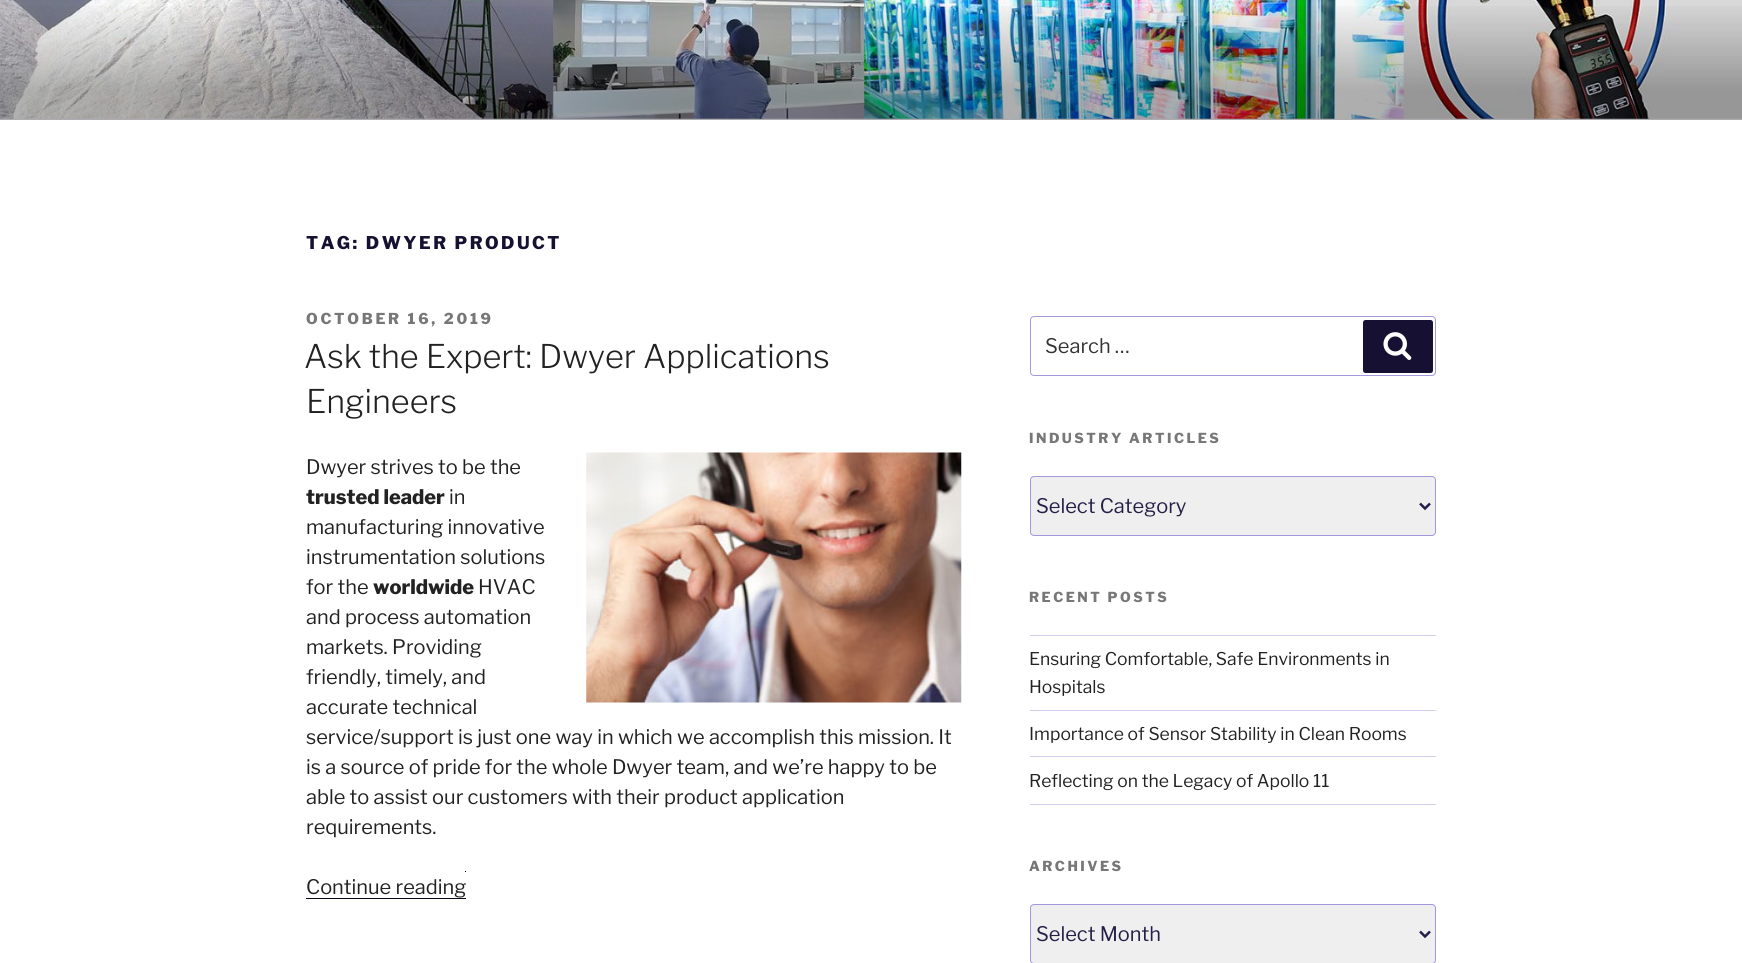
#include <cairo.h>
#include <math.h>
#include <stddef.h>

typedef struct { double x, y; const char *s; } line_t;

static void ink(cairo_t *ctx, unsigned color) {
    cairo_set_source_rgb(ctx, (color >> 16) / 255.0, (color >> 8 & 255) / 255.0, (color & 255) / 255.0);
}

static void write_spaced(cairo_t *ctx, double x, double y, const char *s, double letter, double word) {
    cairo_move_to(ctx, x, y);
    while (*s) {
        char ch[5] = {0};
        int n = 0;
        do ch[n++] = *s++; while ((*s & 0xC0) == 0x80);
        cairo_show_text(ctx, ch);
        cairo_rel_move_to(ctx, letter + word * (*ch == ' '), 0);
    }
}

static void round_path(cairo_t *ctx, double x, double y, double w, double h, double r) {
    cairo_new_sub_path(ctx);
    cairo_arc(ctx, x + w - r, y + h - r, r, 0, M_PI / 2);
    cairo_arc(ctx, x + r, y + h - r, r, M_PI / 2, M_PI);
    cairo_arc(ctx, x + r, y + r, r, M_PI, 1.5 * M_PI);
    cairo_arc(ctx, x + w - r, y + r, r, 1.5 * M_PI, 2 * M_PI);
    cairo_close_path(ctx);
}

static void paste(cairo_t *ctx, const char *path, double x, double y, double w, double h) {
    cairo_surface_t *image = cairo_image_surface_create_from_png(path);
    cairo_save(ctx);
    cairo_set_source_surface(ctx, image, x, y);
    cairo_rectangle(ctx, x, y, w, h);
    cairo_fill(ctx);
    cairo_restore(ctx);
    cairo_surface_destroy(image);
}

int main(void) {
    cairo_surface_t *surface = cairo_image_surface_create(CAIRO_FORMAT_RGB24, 1742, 963);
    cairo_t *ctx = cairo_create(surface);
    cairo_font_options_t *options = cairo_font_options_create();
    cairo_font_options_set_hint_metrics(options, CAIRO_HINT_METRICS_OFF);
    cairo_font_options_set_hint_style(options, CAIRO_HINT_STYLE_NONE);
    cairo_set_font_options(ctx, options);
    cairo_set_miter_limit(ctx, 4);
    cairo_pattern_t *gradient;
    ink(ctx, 0xFFFFFF);
    cairo_paint(ctx);
    ink(ctx, 0xF8F7FC);
    cairo_rectangle(ctx, 0, 118, 1742, 2);
    cairo_fill(ctx);
    paste(ctx, "media/1.png", 0, 0, 1742, 119);
    gradient = cairo_pattern_create_linear(871, 0, 871, 120);
    cairo_pattern_add_color_stop_rgba(gradient, 0, 0, 0, 0, 0);
    cairo_pattern_add_color_stop_rgba(gradient, 0.75, 0, 0, 0, 0.3);
    cairo_pattern_add_color_stop_rgba(gradient, 1, 0, 0, 0, 0.3);
    cairo_set_source(ctx, gradient);
    cairo_pattern_destroy(gradient);
    cairo_rectangle(ctx, 0, 6, 1742, 114);
    cairo_fill(ctx);
    cairo_select_font_face(ctx, "Libre Franklin ExtraBold", CAIRO_FONT_SLANT_NORMAL, CAIRO_FONT_WEIGHT_NORMAL);
    cairo_set_font_size(ctx, 17.5);
    ink(ctx, 0x161132);
    write_spaced(ctx, 306, 249, "TAG: DWYER PRODUCT", 2.5, 0);
    cairo_set_font_size(ctx, 15);
    ink(ctx, 0x777777);
    write_spaced(ctx, 306, 324, "OCTOBER 16, 2019", 2.75, 0);
    cairo_select_font_face(ctx, "Libre Franklin Light", CAIRO_FONT_SLANT_NORMAL, CAIRO_FONT_WEIGHT_NORMAL);
    cairo_set_font_size(ctx, 32.5);
    ink(ctx, 0x222222);
    cairo_move_to(ctx, 304, 368);
    cairo_show_text(ctx, "Ask the Expert: Dwyer Applications");
    cairo_move_to(ctx, 306, 413);
    cairo_show_text(ctx, "Engineers");
    cairo_select_font_face(ctx, "Libre Franklin", CAIRO_FONT_SLANT_NORMAL, CAIRO_FONT_WEIGHT_NORMAL);
    cairo_set_font_size(ctx, 20);
    cairo_move_to(ctx, 306, 474);
    cairo_show_text(ctx, "Dwyer strives to be the");
    paste(ctx, "media/2.png", 586, 452, 376, 251);
    cairo_select_font_face(ctx, "Libre Franklin ExtraBold", CAIRO_FONT_SLANT_NORMAL, CAIRO_FONT_WEIGHT_NORMAL);
    cairo_move_to(ctx, 306, 504);
    cairo_show_text(ctx, "trusted leader");
    cairo_select_font_face(ctx, "Libre Franklin", CAIRO_FONT_SLANT_NORMAL, CAIRO_FONT_WEIGHT_NORMAL);
    {
        static const line_t items[] = {
            {449, 504, "in"},
            {306, 534, "manufacturing innovative"},
            {306, 564, "instrumentation solutions"},
            {306, 594, "for the"},
        };
        for (size_t i = 0; i < sizeof items / sizeof *items; i++) {
            cairo_move_to(ctx, items[i].x, items[i].y);
            cairo_show_text(ctx, items[i].s);
        }
    }
    cairo_select_font_face(ctx, "Libre Franklin ExtraBold", CAIRO_FONT_SLANT_NORMAL, CAIRO_FONT_WEIGHT_NORMAL);
    cairo_move_to(ctx, 373, 594);
    cairo_show_text(ctx, "worldwide");
    cairo_select_font_face(ctx, "Libre Franklin", CAIRO_FONT_SLANT_NORMAL, CAIRO_FONT_WEIGHT_NORMAL);
    {
        static const line_t items[] = {
            {478, 594, "HVAC"},
            {306, 624, "and process automation"},
            {306, 654, "markets. Providing"},
            {306, 684, "friendly, timely, and"},
            {306, 714, "accurate technical"},
            {306, 744, "service/support is just one way in which we accomplish this mission. It"},
            {306, 774, "is a source of pride for the whole Dwyer team, and we’re happy to be"},
            {306, 804, "able to assist our customers with their product application"},
            {306, 834, "requirements."},
            {306, 894, "Continue reading"},
        };
        for (size_t i = 0; i < sizeof items / sizeof *items; i++) {
            cairo_move_to(ctx, items[i].x, items[i].y);
            cairo_show_text(ctx, items[i].s);
        }
    }
    ink(ctx, 0x0A0817);
    cairo_rectangle(ctx, 306, 898, 160, 1);
    cairo_fill(ctx);
    cairo_rectangle(ctx, 465, 871, 1, 1);
    cairo_fill(ctx);
    round_path(ctx, 1030.5, 316.5, 405, 59, 3.5);
    ink(ctx, 0xA398DD);
    cairo_set_line_width(ctx, 1);
    cairo_stroke(ctx);
    ink(ctx, 0x333333);
    cairo_move_to(ctx, 1045, 353);
    cairo_show_text(ctx, "Search …");
    ink(ctx, 0x161132);
    round_path(ctx, 1363, 320, 70, 53, 2.5);
    cairo_fill(ctx);
    paste(ctx, "media/3.png", 1383, 332, 29, 28);
    cairo_select_font_face(ctx, "Libre Franklin ExtraBold", CAIRO_FONT_SLANT_NORMAL, CAIRO_FONT_WEIGHT_NORMAL);
    cairo_set_font_size(ctx, 13.75);
    ink(ctx, 0x777777);
    write_spaced(ctx, 1029, 443, "INDUSTRY ARTICLES", 2.5, 0);
    ink(ctx, 0xEFEFEF);
    round_path(ctx, 1030.5, 476.5, 405, 59, 3.5);
    cairo_fill_preserve(ctx);
    ink(ctx, 0xA398DD);
    cairo_stroke(ctx);
    cairo_new_path(ctx);
    cairo_move_to(ctx, 1420, 503.5);
    cairo_line_to(ctx, 1425, 508.5);
    cairo_line_to(ctx, 1430, 503.5);
    ink(ctx, 0x251F47);
    cairo_set_line_width(ctx, 2.5);
    cairo_stroke(ctx);
    cairo_select_font_face(ctx, "Libre Franklin", CAIRO_FONT_SLANT_NORMAL, CAIRO_FONT_WEIGHT_NORMAL);
    cairo_set_font_size(ctx, 20);
    cairo_move_to(ctx, 1036, 513);
    cairo_show_text(ctx, "Select Category");
    cairo_select_font_face(ctx, "Libre Franklin ExtraBold", CAIRO_FONT_SLANT_NORMAL, CAIRO_FONT_WEIGHT_NORMAL);
    cairo_set_font_size(ctx, 13.75);
    ink(ctx, 0x777777);
    write_spaced(ctx, 1029, 602, "RECENT POSTS", 2.5, 0);
    ink(ctx, 0xD3CDEE);
    cairo_rectangle(ctx, 1030, 635, 406, 1);
    cairo_fill(ctx);
    cairo_rectangle(ctx, 1030, 710, 406, 1);
    cairo_fill(ctx);
    cairo_select_font_face(ctx, "Libre Franklin", CAIRO_FONT_SLANT_NORMAL, CAIRO_FONT_WEIGHT_NORMAL);
    cairo_set_font_size(ctx, 17.5);
    ink(ctx, 0x222222);
    cairo_move_to(ctx, 1029, 665);
    cairo_show_text(ctx, "Ensuring Comfortable, Safe Environments in");
    cairo_move_to(ctx, 1029, 693);
    cairo_show_text(ctx, "Hospitals");
    ink(ctx, 0xD3CDEE);
    cairo_rectangle(ctx, 1030, 756, 406, 1);
    cairo_fill(ctx);
    ink(ctx, 0x222222);
    cairo_move_to(ctx, 1029, 740);
    cairo_show_text(ctx, "Importance of Sensor Stability in Clean Rooms");
    ink(ctx, 0xD3CDEE);
    cairo_rectangle(ctx, 1030, 804, 406, 1);
    cairo_fill(ctx);
    ink(ctx, 0x222222);
    cairo_move_to(ctx, 1029, 787);
    cairo_show_text(ctx, "Reflecting on the Legacy of Apollo 11");
    cairo_select_font_face(ctx, "Libre Franklin ExtraBold", CAIRO_FONT_SLANT_NORMAL, CAIRO_FONT_WEIGHT_NORMAL);
    cairo_set_font_size(ctx, 13.75);
    ink(ctx, 0x777777);
    write_spaced(ctx, 1029, 871, "ARCHIVES", 2.5, 0);
    ink(ctx, 0xEFEFEF);
    round_path(ctx, 1030.5, 904.5, 405, 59, 3.5);
    cairo_fill_preserve(ctx);
    ink(ctx, 0xA398DD);
    cairo_set_line_width(ctx, 1);
    cairo_stroke(ctx);
    cairo_new_path(ctx);
    cairo_move_to(ctx, 1420, 931.5);
    cairo_line_to(ctx, 1425, 936.5);
    cairo_line_to(ctx, 1430, 931.5);
    ink(ctx, 0x251F47);
    cairo_set_line_width(ctx, 2.5);
    cairo_stroke(ctx);
    cairo_select_font_face(ctx, "Libre Franklin", CAIRO_FONT_SLANT_NORMAL, CAIRO_FONT_WEIGHT_NORMAL);
    cairo_set_font_size(ctx, 20);
    cairo_move_to(ctx, 1036, 941);
    cairo_show_text(ctx, "Select Month");
    cairo_surface_write_to_png(surface, "image.png");
    cairo_font_options_destroy(options);
    cairo_destroy(ctx);
    cairo_surface_destroy(surface);
    return 0;
}
